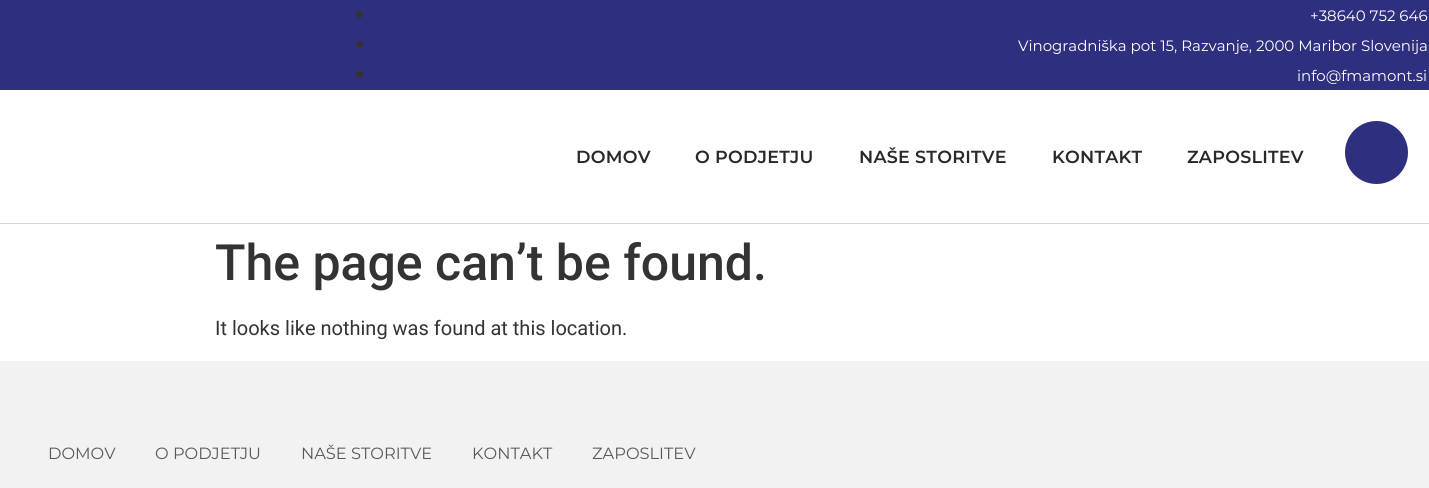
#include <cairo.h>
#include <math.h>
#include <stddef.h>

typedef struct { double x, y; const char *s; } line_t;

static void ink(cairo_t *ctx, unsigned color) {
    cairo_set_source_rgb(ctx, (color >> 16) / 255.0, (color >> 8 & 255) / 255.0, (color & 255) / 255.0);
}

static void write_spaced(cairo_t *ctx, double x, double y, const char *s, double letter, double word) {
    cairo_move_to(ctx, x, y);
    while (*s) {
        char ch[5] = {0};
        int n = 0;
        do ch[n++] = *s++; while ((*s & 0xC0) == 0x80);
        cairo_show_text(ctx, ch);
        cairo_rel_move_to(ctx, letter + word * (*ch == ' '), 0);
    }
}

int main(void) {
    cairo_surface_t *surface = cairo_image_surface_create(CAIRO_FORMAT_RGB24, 1429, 488);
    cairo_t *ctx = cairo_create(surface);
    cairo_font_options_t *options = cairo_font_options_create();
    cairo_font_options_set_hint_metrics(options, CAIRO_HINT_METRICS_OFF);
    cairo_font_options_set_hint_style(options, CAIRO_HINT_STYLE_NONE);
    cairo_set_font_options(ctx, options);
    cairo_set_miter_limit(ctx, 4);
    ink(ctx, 0xFFFFFF);
    cairo_paint(ctx);
    ink(ctx, 0x2F2F80);
    cairo_rectangle(ctx, 0, 0, 1429, 90);
    cairo_fill(ctx);
    ink(ctx, 0x333333);
    cairo_arc(ctx, 359.5, 14.5, 3.5, 0, 2 * M_PI);
    cairo_fill(ctx);
    cairo_select_font_face(ctx, "Montserrat", CAIRO_FONT_SLANT_NORMAL, CAIRO_FONT_WEIGHT_NORMAL);
    cairo_set_font_size(ctx, 15);
    ink(ctx, 0xFFFFFF);
    cairo_move_to(ctx, 1310, 21);
    cairo_show_text(ctx, "+38640 752 646");
    ink(ctx, 0x333333);
    cairo_new_path(ctx);
    cairo_arc(ctx, 359.5, 44.5, 3.5, 0, 2 * M_PI);
    cairo_fill(ctx);
    ink(ctx, 0xFFFFFF);
    cairo_move_to(ctx, 1018, 51);
    cairo_show_text(ctx, "Vinogradniška pot 15, Razvanje, 2000 Maribor Slovenija");
    ink(ctx, 0x333333);
    cairo_new_path(ctx);
    cairo_arc(ctx, 359.5, 74.5, 3.5, 0, 2 * M_PI);
    cairo_fill(ctx);
    ink(ctx, 0xFFFFFF);
    cairo_move_to(ctx, 1297, 81);
    cairo_show_text(ctx, "info@fmamont.si");
    ink(ctx, 0xD8D8D8);
    cairo_rectangle(ctx, 0, 223, 1429, 1);
    cairo_fill(ctx);
    cairo_select_font_face(ctx, "Montserrat SemiBold", CAIRO_FONT_SLANT_NORMAL, CAIRO_FONT_WEIGHT_NORMAL);
    cairo_set_font_size(ctx, 17.5);
    ink(ctx, 0x262A2B);
    {
        static const line_t items[] = {
            {576, 163, "DOMOV"},
            {695, 163, "O PODJETJU"},
            {859, 163, "NAŠE STORITVE"},
            {1052, 163, "KONTAKT"},
            {1187, 163, "ZAPOSLITEV"},
        };
        for (size_t i = 0; i < sizeof items / sizeof *items; i++) {
            write_spaced(ctx, items[i].x, items[i].y, items[i].s, 0.25, 0);
        }
    }
    ink(ctx, 0x2F2F80);
    cairo_new_path(ctx);
    cairo_arc(ctx, 1376.5, 152.5, 31.5, 0, 2 * M_PI);
    cairo_fill(ctx);
    cairo_select_font_face(ctx, "Roboto Medium", CAIRO_FONT_SLANT_NORMAL, CAIRO_FONT_WEIGHT_NORMAL);
    cairo_set_font_size(ctx, 50);
    ink(ctx, 0x333333);
    cairo_move_to(ctx, 215, 280);
    cairo_show_text(ctx, "The page can’t be found.");
    cairo_select_font_face(ctx, "Roboto", CAIRO_FONT_SLANT_NORMAL, CAIRO_FONT_WEIGHT_NORMAL);
    cairo_set_font_size(ctx, 20);
    cairo_move_to(ctx, 215, 335);
    cairo_show_text(ctx, "It looks like nothing was found at this location.");
    ink(ctx, 0xF2F2F2);
    cairo_rectangle(ctx, 0, 361, 1429, 127);
    cairo_fill(ctx);
    cairo_select_font_face(ctx, "Montserrat", CAIRO_FONT_SLANT_NORMAL, CAIRO_FONT_WEIGHT_NORMAL);
    cairo_set_font_size(ctx, 16.25);
    ink(ctx, 0x54595F);
    {
        static const line_t items[] = {
            {48, 459, "DOMOV"},
            {155, 459, "O PODJETJU"},
            {301, 459, "NAŠE STORITVE"},
            {472, 459, "KONTAKT"},
            {592, 459, "ZAPOSLITEV"},
        };
        for (size_t i = 0; i < sizeof items / sizeof *items; i++) {
            cairo_move_to(ctx, items[i].x, items[i].y);
            cairo_show_text(ctx, items[i].s);
        }
    }
    cairo_surface_write_to_png(surface, "image.png");
    cairo_font_options_destroy(options);
    cairo_destroy(ctx);
    cairo_surface_destroy(surface);
    return 0;
}
